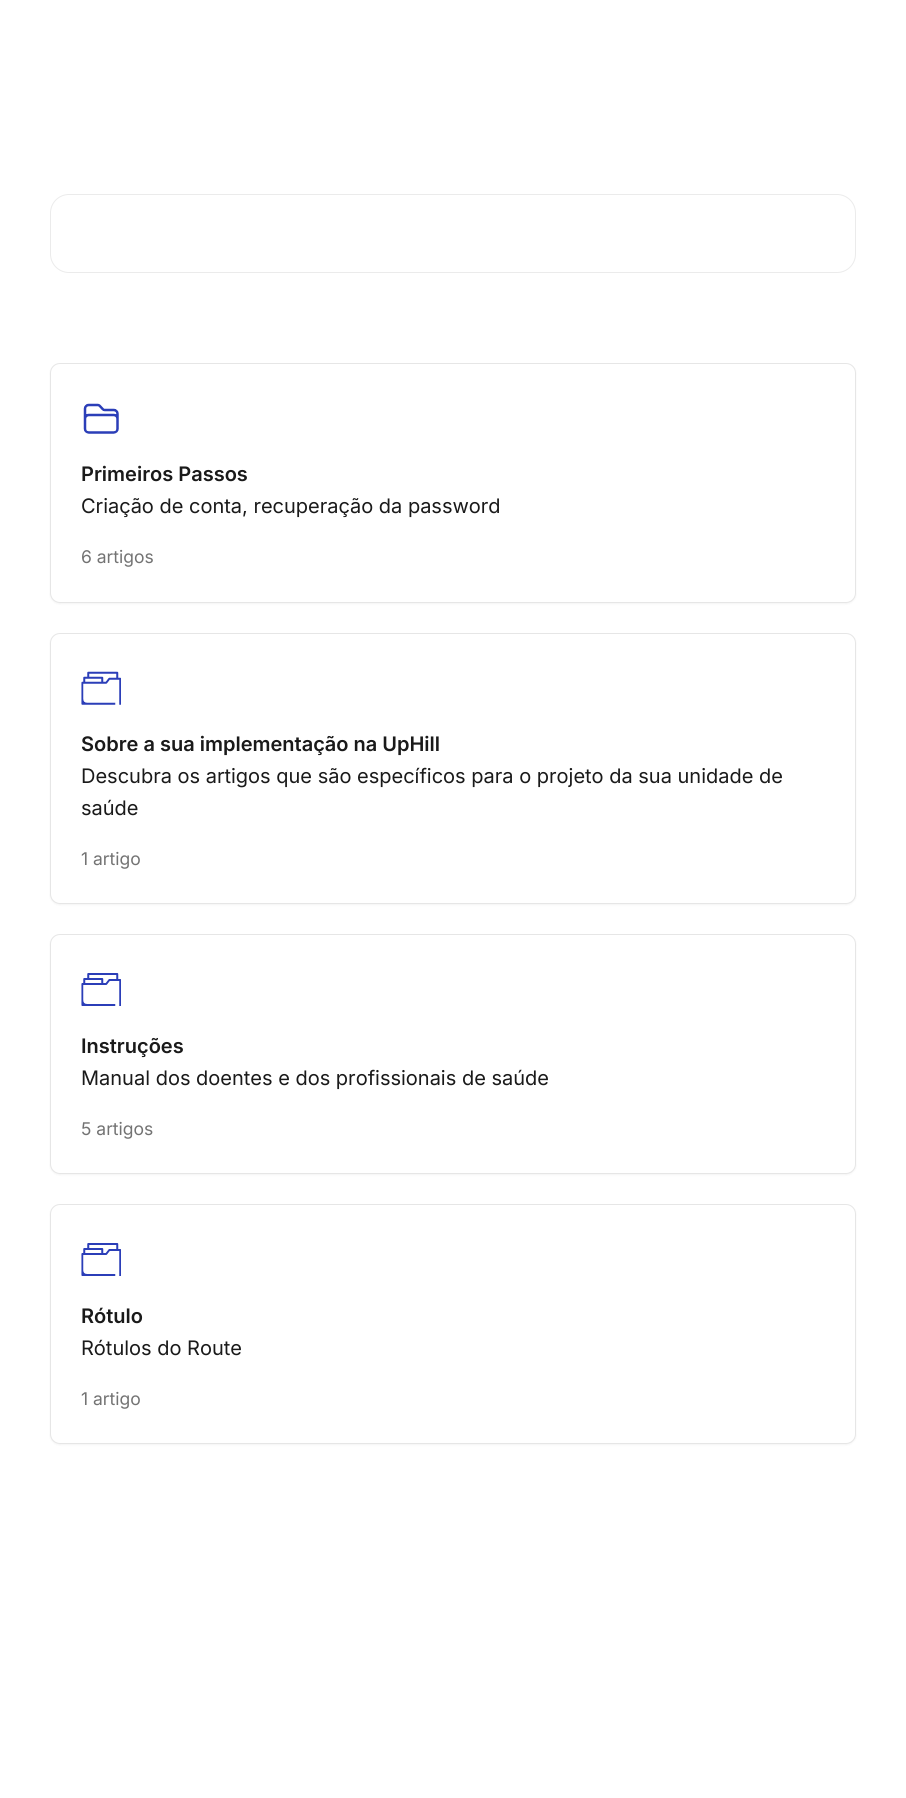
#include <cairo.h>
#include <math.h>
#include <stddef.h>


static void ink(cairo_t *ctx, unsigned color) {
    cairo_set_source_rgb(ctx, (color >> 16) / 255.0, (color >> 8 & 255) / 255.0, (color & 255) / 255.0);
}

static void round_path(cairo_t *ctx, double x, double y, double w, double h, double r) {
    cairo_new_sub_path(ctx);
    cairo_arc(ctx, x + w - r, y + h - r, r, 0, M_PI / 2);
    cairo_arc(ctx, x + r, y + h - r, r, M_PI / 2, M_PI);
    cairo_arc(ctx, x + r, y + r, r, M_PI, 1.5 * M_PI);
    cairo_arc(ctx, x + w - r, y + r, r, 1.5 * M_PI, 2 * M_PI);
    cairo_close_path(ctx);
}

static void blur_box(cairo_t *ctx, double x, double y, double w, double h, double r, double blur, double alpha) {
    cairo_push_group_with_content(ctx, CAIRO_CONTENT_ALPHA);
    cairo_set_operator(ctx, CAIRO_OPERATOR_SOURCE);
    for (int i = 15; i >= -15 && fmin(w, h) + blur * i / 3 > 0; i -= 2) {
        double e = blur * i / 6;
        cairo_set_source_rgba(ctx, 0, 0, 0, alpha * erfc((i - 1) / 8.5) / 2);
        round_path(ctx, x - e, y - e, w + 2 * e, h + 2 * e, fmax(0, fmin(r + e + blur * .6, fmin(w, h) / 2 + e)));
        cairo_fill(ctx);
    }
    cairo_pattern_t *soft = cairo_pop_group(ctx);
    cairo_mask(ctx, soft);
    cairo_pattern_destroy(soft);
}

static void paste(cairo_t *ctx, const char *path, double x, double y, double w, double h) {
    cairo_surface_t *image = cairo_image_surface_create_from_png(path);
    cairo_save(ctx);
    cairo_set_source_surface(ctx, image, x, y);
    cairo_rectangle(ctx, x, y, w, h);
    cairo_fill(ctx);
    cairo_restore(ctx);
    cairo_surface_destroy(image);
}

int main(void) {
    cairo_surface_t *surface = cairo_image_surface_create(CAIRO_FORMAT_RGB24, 906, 1798);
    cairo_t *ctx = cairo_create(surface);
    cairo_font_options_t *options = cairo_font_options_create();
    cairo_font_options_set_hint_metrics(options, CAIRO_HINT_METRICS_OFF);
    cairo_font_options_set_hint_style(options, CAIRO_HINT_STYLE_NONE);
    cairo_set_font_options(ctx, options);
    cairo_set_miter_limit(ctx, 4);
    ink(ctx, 0xFFFFFF);
    cairo_paint(ctx);
    round_path(ctx, 50.5, 194.5, 805, 78, 18.5);
    cairo_set_source_rgba(ctx, 0, 0, 0, 0.08);
    cairo_set_line_width(ctx, 1);
    cairo_stroke(ctx);
    ink(ctx, 0x000000);
    blur_box(ctx, 50, 364, 806, 240, 10, 1, 0.05);
    ink(ctx, 0xFFFFFF);
    round_path(ctx, 50.5, 363.5, 805, 239, 9.5);
    cairo_fill_preserve(ctx);
    ink(ctx, 0xE6E6E6);
    cairo_stroke(ctx);
    paste(ctx, "media/1.png", 83, 403, 36, 31);
    cairo_select_font_face(ctx, "Inter SemiBold", CAIRO_FONT_SLANT_NORMAL, CAIRO_FONT_WEIGHT_NORMAL);
    cairo_set_font_size(ctx, 20);
    ink(ctx, 0x1A1A1A);
    cairo_move_to(ctx, 81, 481);
    cairo_show_text(ctx, "Primeiros Passos");
    cairo_select_font_face(ctx, "Inter", CAIRO_FONT_SLANT_NORMAL, CAIRO_FONT_WEIGHT_NORMAL);
    cairo_move_to(ctx, 81, 513);
    cairo_show_text(ctx, "Criação de conta, recuperação da password");
    cairo_set_font_size(ctx, 17.5);
    ink(ctx, 0x737373);
    cairo_move_to(ctx, 81, 563);
    cairo_show_text(ctx, "6 artigos");
    ink(ctx, 0x000000);
    blur_box(ctx, 50, 634, 806, 271, 10, 1, 0.05);
    ink(ctx, 0xFFFFFF);
    round_path(ctx, 50.5, 633.5, 805, 270, 9.5);
    cairo_fill_preserve(ctx);
    ink(ctx, 0xE6E6E6);
    cairo_stroke(ctx);
    paste(ctx, "media/2.png", 81, 671, 40, 34);
    cairo_select_font_face(ctx, "Inter SemiBold", CAIRO_FONT_SLANT_NORMAL, CAIRO_FONT_WEIGHT_NORMAL);
    cairo_set_font_size(ctx, 20);
    ink(ctx, 0x1A1A1A);
    cairo_move_to(ctx, 81, 751);
    cairo_show_text(ctx, "Sobre a sua implementação na UpHill");
    cairo_select_font_face(ctx, "Inter", CAIRO_FONT_SLANT_NORMAL, CAIRO_FONT_WEIGHT_NORMAL);
    cairo_move_to(ctx, 81, 783);
    cairo_show_text(ctx, "Descubra os artigos que são específicos para o projeto da sua unidade de");
    cairo_move_to(ctx, 81, 815);
    cairo_show_text(ctx, "saúde");
    cairo_set_font_size(ctx, 17.5);
    ink(ctx, 0x737373);
    cairo_move_to(ctx, 81, 865);
    cairo_show_text(ctx, "1 artigo");
    ink(ctx, 0x000000);
    blur_box(ctx, 50, 935, 806, 240, 10, 1, 0.05);
    ink(ctx, 0xFFFFFF);
    round_path(ctx, 50.5, 934.5, 805, 239, 9.5);
    cairo_fill_preserve(ctx);
    ink(ctx, 0xE6E6E6);
    cairo_stroke(ctx);
    paste(ctx, "media/3.png", 81, 973, 40, 33);
    cairo_select_font_face(ctx, "Inter SemiBold", CAIRO_FONT_SLANT_NORMAL, CAIRO_FONT_WEIGHT_NORMAL);
    cairo_set_font_size(ctx, 20);
    ink(ctx, 0x1A1A1A);
    cairo_move_to(ctx, 81, 1053);
    cairo_show_text(ctx, "Instruções");
    cairo_select_font_face(ctx, "Inter", CAIRO_FONT_SLANT_NORMAL, CAIRO_FONT_WEIGHT_NORMAL);
    cairo_move_to(ctx, 81, 1085);
    cairo_show_text(ctx, "Manual dos doentes e dos profissionais de saúde");
    cairo_set_font_size(ctx, 17.5);
    ink(ctx, 0x737373);
    cairo_move_to(ctx, 81, 1135);
    cairo_show_text(ctx, "5 artigos");
    ink(ctx, 0x000000);
    blur_box(ctx, 50, 1205, 806, 240, 10, 1, 0.05);
    ink(ctx, 0xFFFFFF);
    round_path(ctx, 50.5, 1204.5, 805, 239, 9.5);
    cairo_fill_preserve(ctx);
    ink(ctx, 0xE6E6E6);
    cairo_stroke(ctx);
    paste(ctx, "media/4.png", 81, 1243, 40, 33);
    cairo_select_font_face(ctx, "Inter SemiBold", CAIRO_FONT_SLANT_NORMAL, CAIRO_FONT_WEIGHT_NORMAL);
    cairo_set_font_size(ctx, 20);
    ink(ctx, 0x1A1A1A);
    cairo_move_to(ctx, 81, 1323);
    cairo_show_text(ctx, "Rótulo");
    cairo_select_font_face(ctx, "Inter", CAIRO_FONT_SLANT_NORMAL, CAIRO_FONT_WEIGHT_NORMAL);
    cairo_move_to(ctx, 81, 1355);
    cairo_show_text(ctx, "Rótulos do Route");
    cairo_set_font_size(ctx, 17.5);
    ink(ctx, 0x737373);
    cairo_move_to(ctx, 81, 1405);
    cairo_show_text(ctx, "1 artigo");
    cairo_surface_write_to_png(surface, "image.png");
    cairo_font_options_destroy(options);
    cairo_destroy(ctx);
    cairo_surface_destroy(surface);
    return 0;
}
